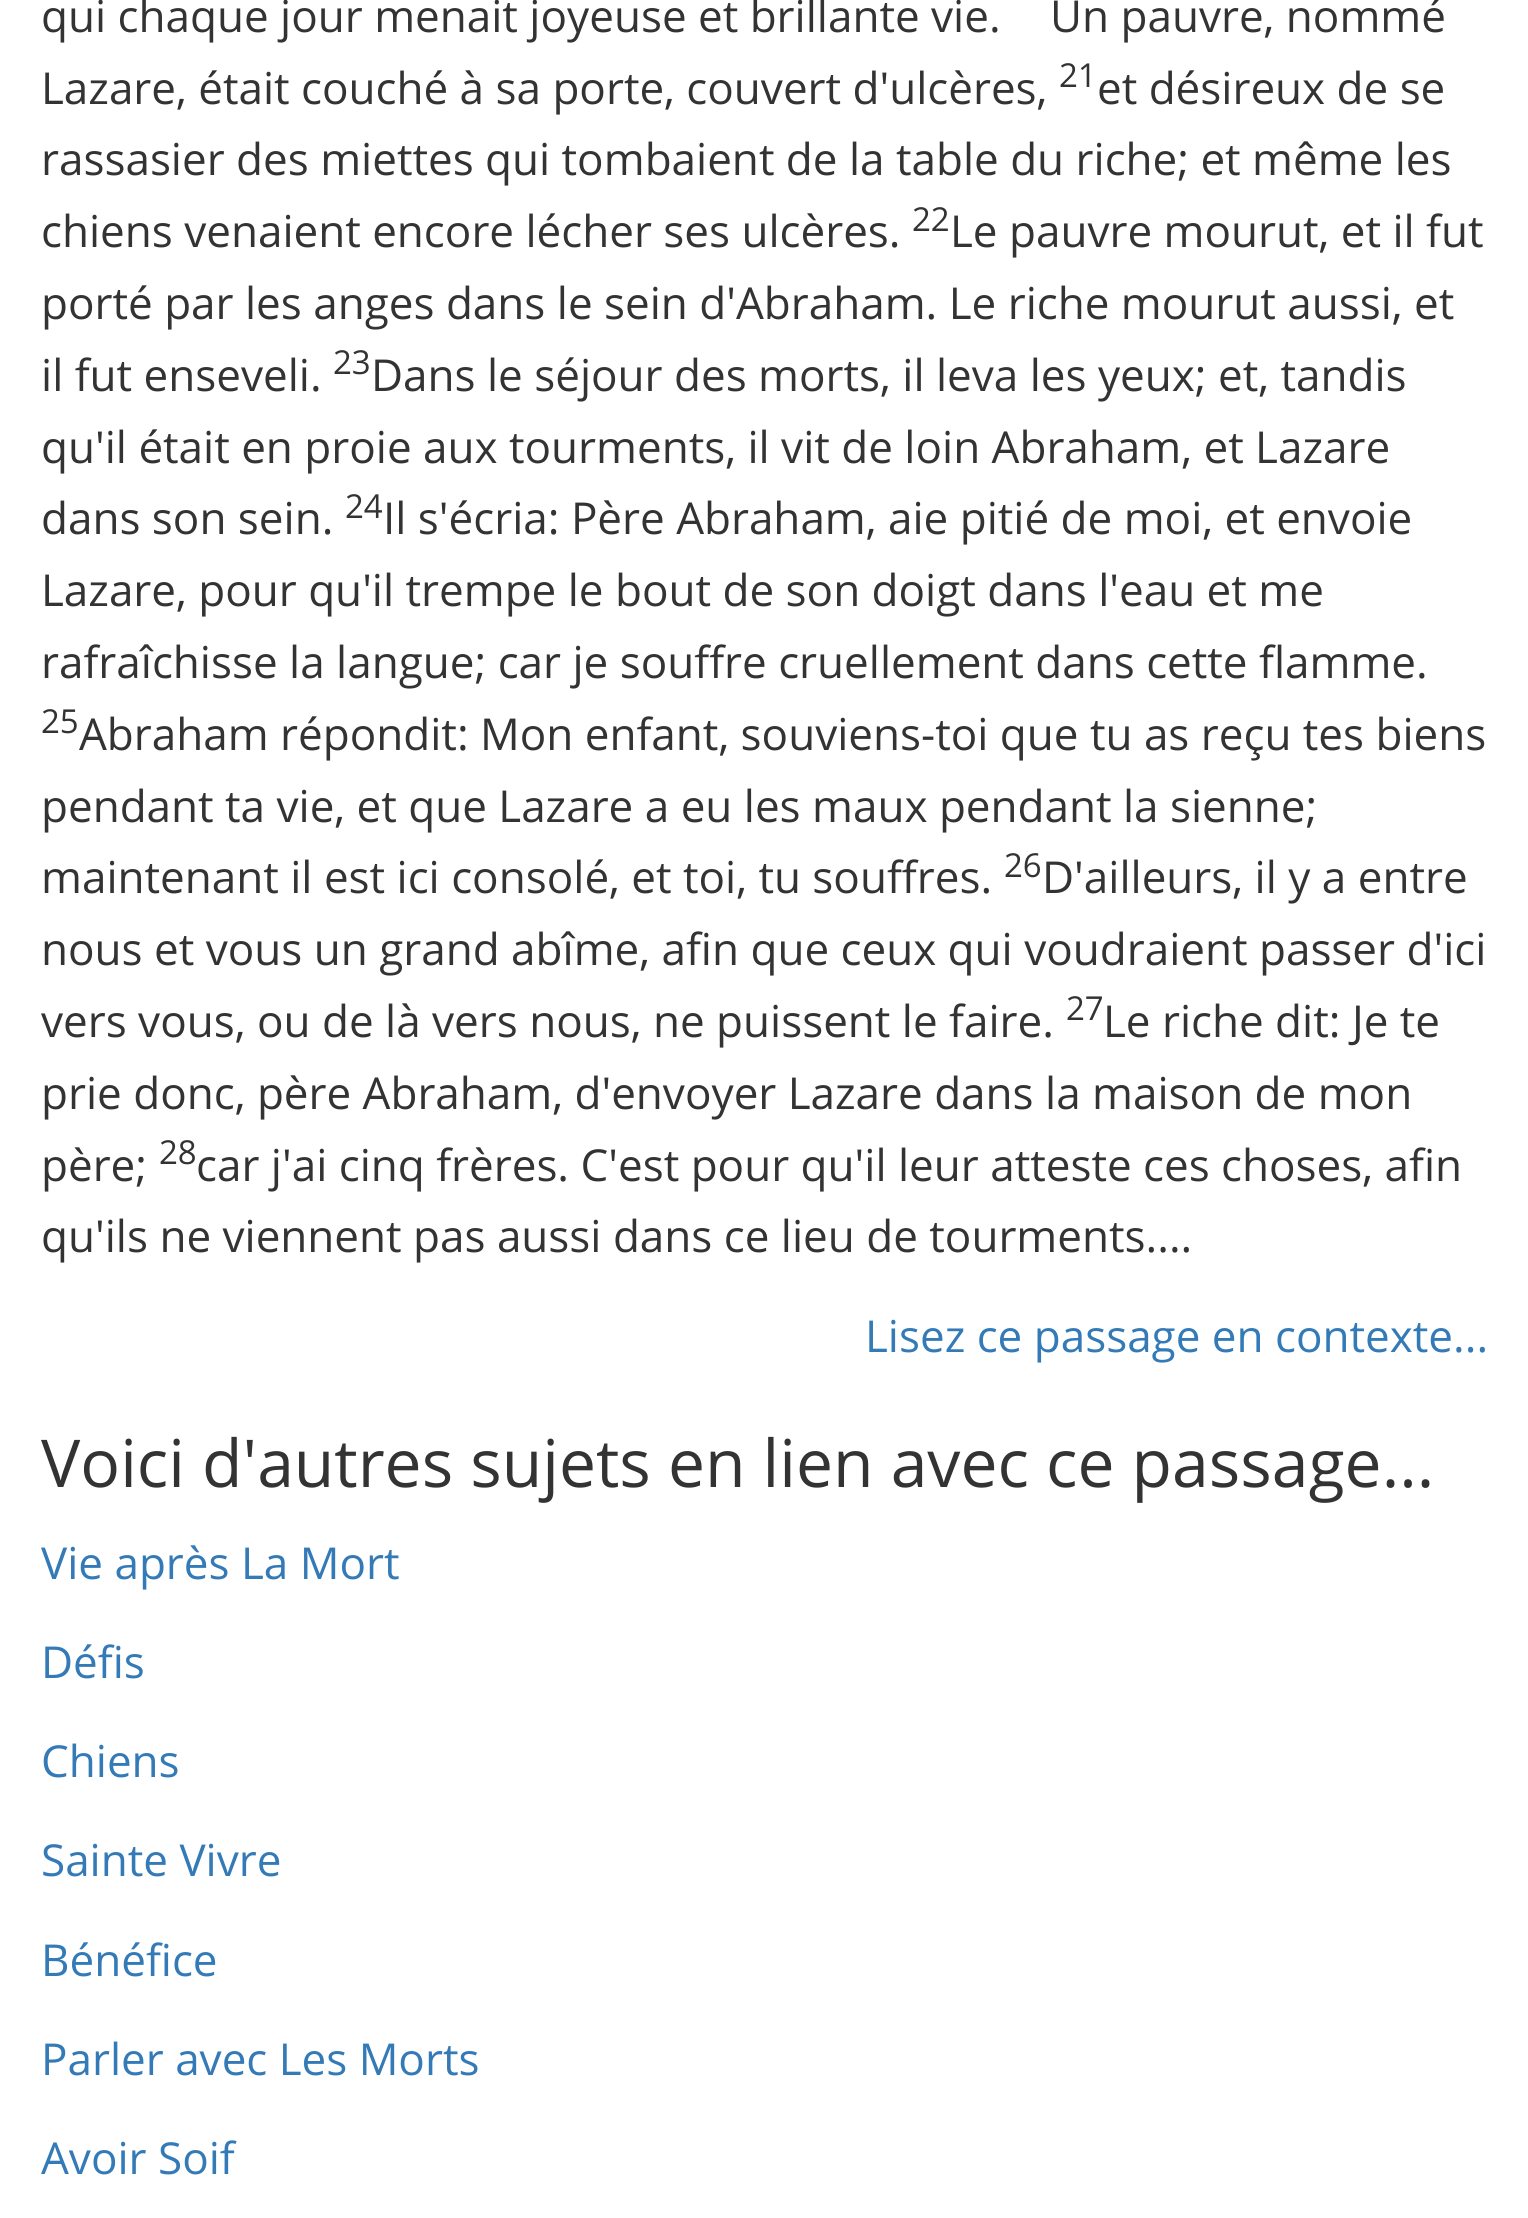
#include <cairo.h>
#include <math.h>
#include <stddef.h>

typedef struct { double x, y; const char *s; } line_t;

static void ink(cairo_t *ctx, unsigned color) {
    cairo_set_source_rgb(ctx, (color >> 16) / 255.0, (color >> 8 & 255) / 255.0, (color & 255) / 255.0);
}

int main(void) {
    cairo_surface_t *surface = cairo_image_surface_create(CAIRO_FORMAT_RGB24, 1528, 2218);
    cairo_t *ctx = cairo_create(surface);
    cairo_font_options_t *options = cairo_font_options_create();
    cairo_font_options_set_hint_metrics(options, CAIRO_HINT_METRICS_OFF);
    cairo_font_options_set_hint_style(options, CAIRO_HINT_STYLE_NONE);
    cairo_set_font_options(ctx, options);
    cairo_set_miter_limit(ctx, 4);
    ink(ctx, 0xFFFFFF);
    cairo_paint(ctx);
    cairo_select_font_face(ctx, "Open Sans", CAIRO_FONT_SLANT_NORMAL, CAIRO_FONT_WEIGHT_NORMAL);
    cairo_set_font_size(ctx, 44);
    ink(ctx, 0x333333);
    {
        static const line_t items[] = {
            {41, 32, "qui chaque jour menait joyeuse et brillante vie."},
            {1050, 32, "Un pauvre, nommé"},
            {41, 104, "Lazare, était couché à sa porte, couvert d'ulcères,"},
        };
        for (size_t i = 0; i < sizeof items / sizeof *items; i++) {
            cairo_move_to(ctx, items[i].x, items[i].y);
            cairo_show_text(ctx, items[i].s);
        }
    }
    cairo_set_font_size(ctx, 33);
    cairo_move_to(ctx, 1059, 87);
    cairo_show_text(ctx, "21");
    cairo_set_font_size(ctx, 44);
    {
        static const line_t items[] = {
            {1097, 104, "et désireux de se"},
            {41, 175, "rassasier des miettes qui tombaient de la table du riche; et même les"},
            {41, 247, "chiens venaient encore lécher ses ulcères."},
        };
        for (size_t i = 0; i < sizeof items / sizeof *items; i++) {
            cairo_move_to(ctx, items[i].x, items[i].y);
            cairo_show_text(ctx, items[i].s);
        }
    }
    cairo_set_font_size(ctx, 33);
    cairo_move_to(ctx, 912, 231);
    cairo_show_text(ctx, "22");
    cairo_set_font_size(ctx, 44);
    {
        static const line_t items[] = {
            {950, 247, "Le pauvre mourut, et il fut"},
            {41, 319, "porté par les anges dans le sein d'Abraham. Le riche mourut aussi, et"},
            {41, 391, "il fut enseveli."},
        };
        for (size_t i = 0; i < sizeof items / sizeof *items; i++) {
            cairo_move_to(ctx, items[i].x, items[i].y);
            cairo_show_text(ctx, items[i].s);
        }
    }
    cairo_set_font_size(ctx, 33);
    cairo_move_to(ctx, 333, 374);
    cairo_show_text(ctx, "23");
    cairo_set_font_size(ctx, 44);
    {
        static const line_t items[] = {
            {371, 391, "Dans le séjour des morts, il leva les yeux; et, tandis"},
            {41, 463, "qu'il était en proie aux tourments, il vit de loin Abraham, et Lazare"},
            {41, 534, "dans son sein."},
        };
        for (size_t i = 0; i < sizeof items / sizeof *items; i++) {
            cairo_move_to(ctx, items[i].x, items[i].y);
            cairo_show_text(ctx, items[i].s);
        }
    }
    cairo_set_font_size(ctx, 33);
    cairo_move_to(ctx, 345, 518);
    cairo_show_text(ctx, "24");
    cairo_set_font_size(ctx, 44);
    {
        static const line_t items[] = {
            {383, 534, "Il s'écria: Père Abraham, aie pitié de moi, et envoie"},
            {41, 606, "Lazare, pour qu'il trempe le bout de son doigt dans l'eau et me"},
            {41, 678, "rafraîchisse la langue; car je souffre cruellement dans cette flamme."},
        };
        for (size_t i = 0; i < sizeof items / sizeof *items; i++) {
            cairo_move_to(ctx, items[i].x, items[i].y);
            cairo_show_text(ctx, items[i].s);
        }
    }
    cairo_set_font_size(ctx, 33);
    cairo_move_to(ctx, 41, 733);
    cairo_show_text(ctx, "25");
    cairo_set_font_size(ctx, 44);
    {
        static const line_t items[] = {
            {79, 750, "Abraham répondit: Mon enfant, souviens-toi que tu as reçu tes biens"},
            {41, 822, "pendant ta vie, et que Lazare a eu les maux pendant la sienne;"},
            {41, 893, "maintenant il est ici consolé, et toi, tu souffres."},
        };
        for (size_t i = 0; i < sizeof items / sizeof *items; i++) {
            cairo_move_to(ctx, items[i].x, items[i].y);
            cairo_show_text(ctx, items[i].s);
        }
    }
    cairo_set_font_size(ctx, 33);
    cairo_move_to(ctx, 1004, 877);
    cairo_show_text(ctx, "26");
    cairo_set_font_size(ctx, 44);
    {
        static const line_t items[] = {
            {1042, 893, "D'ailleurs, il y a entre"},
            {41, 965, "nous et vous un grand abîme, afin que ceux qui voudraient passer d'ici"},
            {41, 1037, "vers vous, ou de là vers nous, ne puissent le faire."},
        };
        for (size_t i = 0; i < sizeof items / sizeof *items; i++) {
            cairo_move_to(ctx, items[i].x, items[i].y);
            cairo_show_text(ctx, items[i].s);
        }
    }
    cairo_set_font_size(ctx, 33);
    cairo_move_to(ctx, 1066, 1020);
    cairo_show_text(ctx, "27");
    cairo_set_font_size(ctx, 44);
    {
        static const line_t items[] = {
            {1103, 1037, "Le riche dit: Je te"},
            {41, 1109, "prie donc, père Abraham, d'envoyer Lazare dans la maison de mon"},
            {41, 1181, "père;"},
        };
        for (size_t i = 0; i < sizeof items / sizeof *items; i++) {
            cairo_move_to(ctx, items[i].x, items[i].y);
            cairo_show_text(ctx, items[i].s);
        }
    }
    cairo_set_font_size(ctx, 33);
    cairo_move_to(ctx, 159, 1164);
    cairo_show_text(ctx, "28");
    cairo_set_font_size(ctx, 44);
    cairo_move_to(ctx, 196, 1181);
    cairo_show_text(ctx, "car j'ai cinq frères. C'est pour qu'il leur atteste ces choses, afin");
    cairo_move_to(ctx, 41, 1252);
    cairo_show_text(ctx, "qu'ils ne viennent pas aussi dans ce lieu de tourments....");
    ink(ctx, 0x337AB7);
    cairo_move_to(ctx, 865, 1352);
    cairo_show_text(ctx, "Lisez ce passage en contexte...");
    cairo_set_font_size(ctx, 66);
    ink(ctx, 0x333333);
    cairo_move_to(ctx, 41, 1487);
    cairo_show_text(ctx, "Voici d'autres sujets en lien avec ce passage...");
    cairo_set_font_size(ctx, 44);
    ink(ctx, 0x337AB7);
    {
        static const line_t items[] = {
            {41, 1579, "Vie après La Mort"},
            {41, 1678, "Défis"},
            {41, 1777, "Chiens"},
            {41, 1876, "Sainte Vivre"},
            {41, 1976, "Bénéfice"},
            {41, 2075, "Parler avec Les Morts"},
            {41, 2174, "Avoir Soif"},
        };
        for (size_t i = 0; i < sizeof items / sizeof *items; i++) {
            cairo_move_to(ctx, items[i].x, items[i].y);
            cairo_show_text(ctx, items[i].s);
        }
    }
    cairo_surface_write_to_png(surface, "image.png");
    cairo_font_options_destroy(options);
    cairo_destroy(ctx);
    cairo_surface_destroy(surface);
    return 0;
}
